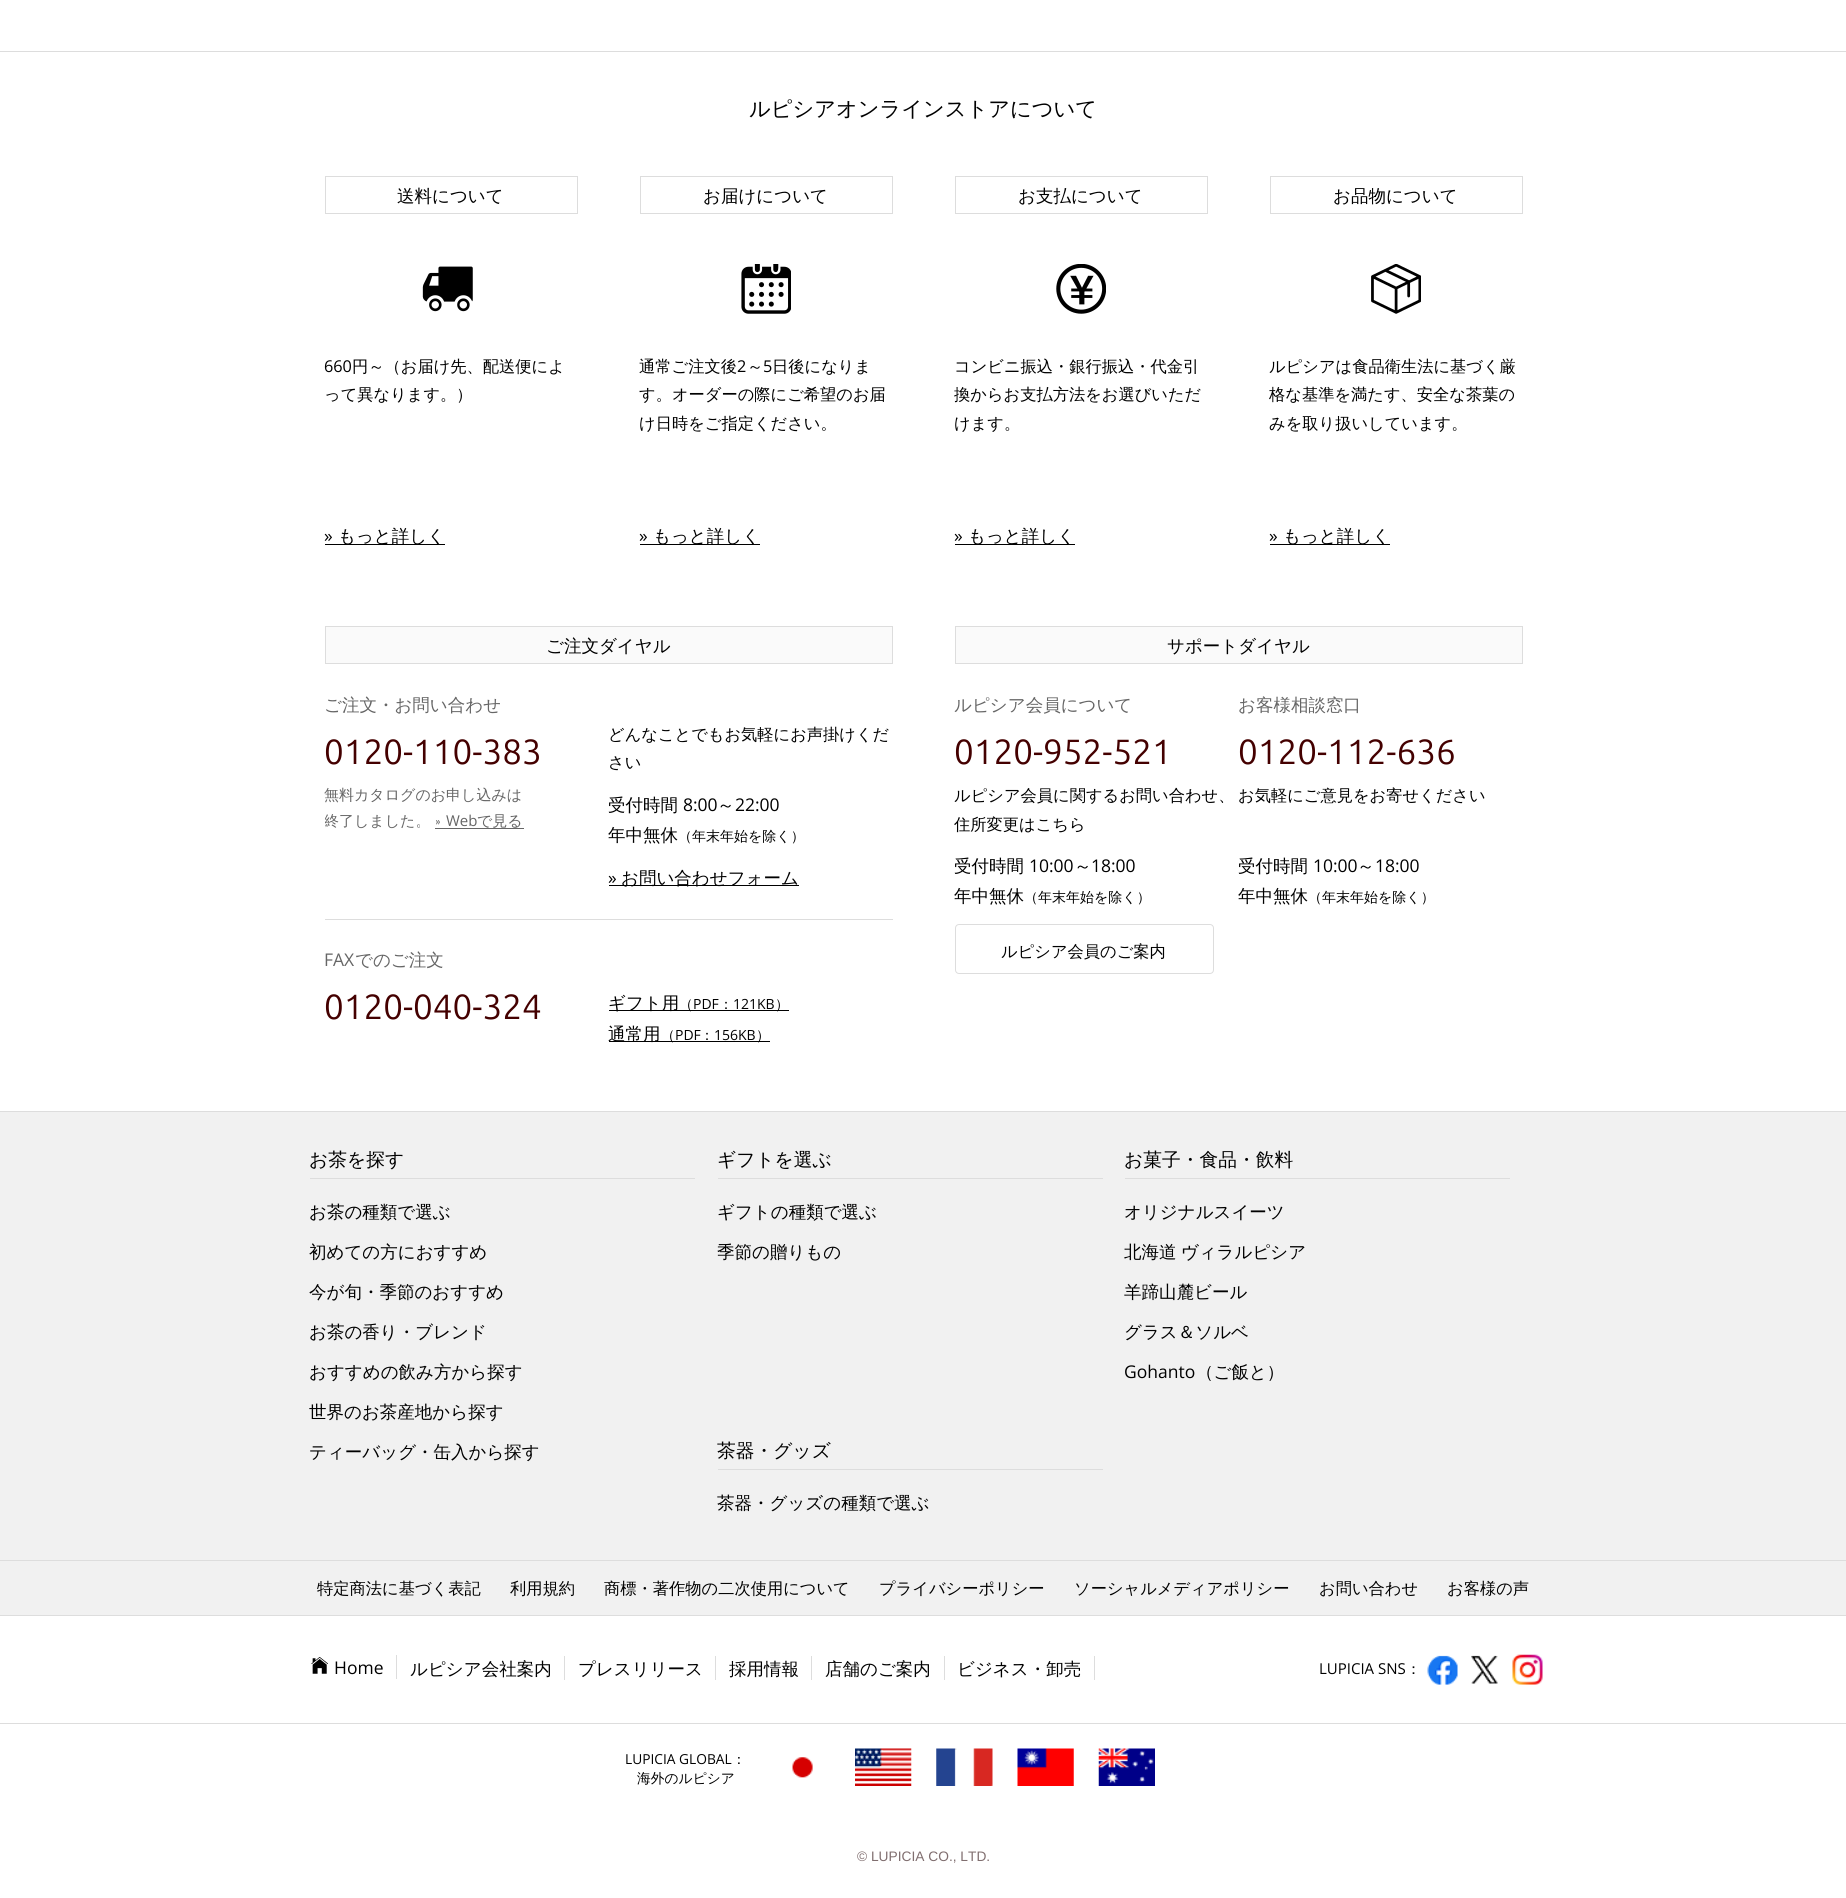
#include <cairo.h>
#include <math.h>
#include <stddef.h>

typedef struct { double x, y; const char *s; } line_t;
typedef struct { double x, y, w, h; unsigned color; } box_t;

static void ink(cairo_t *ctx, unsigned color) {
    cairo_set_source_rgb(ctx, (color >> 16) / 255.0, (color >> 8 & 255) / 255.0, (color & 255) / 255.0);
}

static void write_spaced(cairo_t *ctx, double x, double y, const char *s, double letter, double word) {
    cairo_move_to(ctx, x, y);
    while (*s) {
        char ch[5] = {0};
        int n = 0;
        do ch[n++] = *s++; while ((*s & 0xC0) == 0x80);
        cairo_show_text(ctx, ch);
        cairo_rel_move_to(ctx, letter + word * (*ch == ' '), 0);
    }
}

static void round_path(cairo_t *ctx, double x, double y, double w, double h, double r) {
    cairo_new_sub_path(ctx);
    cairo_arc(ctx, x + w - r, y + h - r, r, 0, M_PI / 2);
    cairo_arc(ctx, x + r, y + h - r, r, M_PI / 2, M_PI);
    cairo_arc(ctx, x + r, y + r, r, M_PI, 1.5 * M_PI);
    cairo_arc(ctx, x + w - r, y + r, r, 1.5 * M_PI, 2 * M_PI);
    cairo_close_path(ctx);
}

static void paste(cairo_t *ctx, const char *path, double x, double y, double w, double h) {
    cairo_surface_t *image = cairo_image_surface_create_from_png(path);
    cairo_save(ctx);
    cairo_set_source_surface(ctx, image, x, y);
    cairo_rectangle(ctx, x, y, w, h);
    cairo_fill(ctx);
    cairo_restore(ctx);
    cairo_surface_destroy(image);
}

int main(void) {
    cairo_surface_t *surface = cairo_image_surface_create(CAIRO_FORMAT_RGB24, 1846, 1898);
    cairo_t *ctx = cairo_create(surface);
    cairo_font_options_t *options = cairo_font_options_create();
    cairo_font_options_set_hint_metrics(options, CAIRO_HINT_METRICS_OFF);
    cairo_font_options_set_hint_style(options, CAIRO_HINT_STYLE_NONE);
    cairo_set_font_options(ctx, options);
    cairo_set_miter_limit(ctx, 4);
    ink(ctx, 0xFFFFFF);
    cairo_paint(ctx);
    ink(ctx, 0xDDDDDD);
    cairo_rectangle(ctx, 0, 51, 1846, 1);
    cairo_fill(ctx);
    cairo_select_font_face(ctx, "WenQuanYi Zen Hei Medium", CAIRO_FONT_SLANT_NORMAL, CAIRO_FONT_WEIGHT_NORMAL);
    cairo_set_font_size(ctx, 21.25);
    ink(ctx, 0x000000);
    cairo_move_to(ctx, 749, 116);
    cairo_show_text(ctx, "ルピシアオンラインストアについて");
    cairo_rectangle(ctx, 325.5, 176.5, 252, 37);
    ink(ctx, 0xDDDDDD);
    cairo_set_line_width(ctx, 1);
    cairo_stroke(ctx);
    cairo_set_font_size(ctx, 17.5);
    ink(ctx, 0x000000);
    cairo_move_to(ctx, 397, 202);
    cairo_show_text(ctx, "送料について");
    paste(ctx, "media/1.png", 422, 266, 51, 46);
    cairo_select_font_face(ctx, "Open Sans", CAIRO_FONT_SLANT_NORMAL, CAIRO_FONT_WEIGHT_NORMAL);
    cairo_set_font_size(ctx, 16.25);
    cairo_move_to(ctx, 324, 372);
    cairo_show_text(ctx, "660");
    cairo_select_font_face(ctx, "WenQuanYi Zen Hei Medium", CAIRO_FONT_SLANT_NORMAL, CAIRO_FONT_WEIGHT_NORMAL);
    cairo_move_to(ctx, 352, 372);
    cairo_show_text(ctx, "円～（お届け先、配送便によ");
    cairo_move_to(ctx, 324, 400);
    cairo_show_text(ctx, "って異なります。）");
    cairo_select_font_face(ctx, "Open Sans", CAIRO_FONT_SLANT_NORMAL, CAIRO_FONT_WEIGHT_NORMAL);
    cairo_set_font_size(ctx, 17.5);
    cairo_move_to(ctx, 324, 542);
    cairo_show_text(ctx, "»");
    cairo_rectangle(ctx, 325, 544, 120, 1);
    cairo_fill(ctx);
    cairo_select_font_face(ctx, "WenQuanYi Zen Hei Medium", CAIRO_FONT_SLANT_NORMAL, CAIRO_FONT_WEIGHT_NORMAL);
    cairo_move_to(ctx, 338, 542);
    cairo_show_text(ctx, "もっと詳しく");
    cairo_rectangle(ctx, 640.5, 176.5, 252, 37);
    ink(ctx, 0xDDDDDD);
    cairo_stroke(ctx);
    ink(ctx, 0x000000);
    cairo_move_to(ctx, 703, 202);
    cairo_show_text(ctx, "お届けについて");
    paste(ctx, "media/2.png", 741, 264, 50, 50);
    cairo_set_font_size(ctx, 16.25);
    cairo_move_to(ctx, 639, 372);
    cairo_show_text(ctx, "通常ご注文後");
    cairo_select_font_face(ctx, "Open Sans", CAIRO_FONT_SLANT_NORMAL, CAIRO_FONT_WEIGHT_NORMAL);
    cairo_move_to(ctx, 737, 372);
    cairo_show_text(ctx, "2");
    cairo_select_font_face(ctx, "WenQuanYi Zen Hei Medium", CAIRO_FONT_SLANT_NORMAL, CAIRO_FONT_WEIGHT_NORMAL);
    cairo_move_to(ctx, 747, 372);
    cairo_show_text(ctx, "～");
    cairo_select_font_face(ctx, "Open Sans", CAIRO_FONT_SLANT_NORMAL, CAIRO_FONT_WEIGHT_NORMAL);
    cairo_move_to(ctx, 763, 372);
    cairo_show_text(ctx, "5");
    cairo_select_font_face(ctx, "WenQuanYi Zen Hei Medium", CAIRO_FONT_SLANT_NORMAL, CAIRO_FONT_WEIGHT_NORMAL);
    {
        static const line_t items[] = {
            {772, 372, "日後になりま"},
            {639, 400, "す。オーダーの際にご希望のお届"},
            {639, 429, "け日時をご指定ください。"},
        };
        for (size_t i = 0; i < sizeof items / sizeof *items; i++) {
            cairo_move_to(ctx, items[i].x, items[i].y);
            cairo_show_text(ctx, items[i].s);
        }
    }
    cairo_select_font_face(ctx, "Open Sans", CAIRO_FONT_SLANT_NORMAL, CAIRO_FONT_WEIGHT_NORMAL);
    cairo_set_font_size(ctx, 17.5);
    cairo_move_to(ctx, 639, 542);
    cairo_show_text(ctx, "»");
    cairo_rectangle(ctx, 640, 544, 120, 1);
    cairo_fill(ctx);
    cairo_select_font_face(ctx, "WenQuanYi Zen Hei Medium", CAIRO_FONT_SLANT_NORMAL, CAIRO_FONT_WEIGHT_NORMAL);
    cairo_move_to(ctx, 653, 542);
    cairo_show_text(ctx, "もっと詳しく");
    cairo_rectangle(ctx, 955.5, 176.5, 252, 37);
    ink(ctx, 0xDDDDDD);
    cairo_stroke(ctx);
    ink(ctx, 0x000000);
    cairo_move_to(ctx, 1018, 202);
    cairo_show_text(ctx, "お支払について");
    paste(ctx, "media/3.png", 1056, 264, 50, 50);
    cairo_set_font_size(ctx, 16.25);
    {
        static const line_t items[] = {
            {954, 372, "コンビニ振込・銀行振込・代金引"},
            {954, 400, "換からお支払方法をお選びいただ"},
            {954, 429, "けます。"},
        };
        for (size_t i = 0; i < sizeof items / sizeof *items; i++) {
            cairo_move_to(ctx, items[i].x, items[i].y);
            cairo_show_text(ctx, items[i].s);
        }
    }
    cairo_select_font_face(ctx, "Open Sans", CAIRO_FONT_SLANT_NORMAL, CAIRO_FONT_WEIGHT_NORMAL);
    cairo_set_font_size(ctx, 17.5);
    cairo_move_to(ctx, 954, 542);
    cairo_show_text(ctx, "»");
    cairo_rectangle(ctx, 955, 544, 120, 1);
    cairo_fill(ctx);
    cairo_select_font_face(ctx, "WenQuanYi Zen Hei Medium", CAIRO_FONT_SLANT_NORMAL, CAIRO_FONT_WEIGHT_NORMAL);
    cairo_move_to(ctx, 968, 542);
    cairo_show_text(ctx, "もっと詳しく");
    cairo_rectangle(ctx, 1270.5, 176.5, 252, 37);
    ink(ctx, 0xDDDDDD);
    cairo_stroke(ctx);
    ink(ctx, 0x000000);
    cairo_move_to(ctx, 1333, 202);
    cairo_show_text(ctx, "お品物について");
    paste(ctx, "media/4.png", 1371, 264, 50, 50);
    cairo_set_font_size(ctx, 16.25);
    {
        static const line_t items[] = {
            {1269, 372, "ルピシアは食品衛生法に基づく厳"},
            {1269, 400, "格な基準を満たす、安全な茶葉の"},
            {1269, 429, "みを取り扱いしています。"},
        };
        for (size_t i = 0; i < sizeof items / sizeof *items; i++) {
            cairo_move_to(ctx, items[i].x, items[i].y);
            cairo_show_text(ctx, items[i].s);
        }
    }
    cairo_select_font_face(ctx, "Open Sans", CAIRO_FONT_SLANT_NORMAL, CAIRO_FONT_WEIGHT_NORMAL);
    cairo_set_font_size(ctx, 17.5);
    cairo_move_to(ctx, 1269, 542);
    cairo_show_text(ctx, "»");
    cairo_rectangle(ctx, 1270, 544, 120, 1);
    cairo_fill(ctx);
    cairo_select_font_face(ctx, "WenQuanYi Zen Hei Medium", CAIRO_FONT_SLANT_NORMAL, CAIRO_FONT_WEIGHT_NORMAL);
    cairo_move_to(ctx, 1283, 542);
    cairo_show_text(ctx, "もっと詳しく");
    ink(ctx, 0xFAFAFA);
    cairo_rectangle(ctx, 325.5, 626.5, 567, 37);
    cairo_fill_preserve(ctx);
    ink(ctx, 0xDDDDDD);
    cairo_stroke(ctx);
    ink(ctx, 0x000000);
    cairo_move_to(ctx, 546, 652);
    cairo_show_text(ctx, "ご注文ダイヤル");
    ink(ctx, 0x666666);
    cairo_move_to(ctx, 324, 711);
    cairo_show_text(ctx, "ご注文・お問い合わせ");
    cairo_select_font_face(ctx, "Ubuntu", CAIRO_FONT_SLANT_NORMAL, CAIRO_FONT_WEIGHT_NORMAL);
    cairo_set_font_size(ctx, 35);
    ink(ctx, 0x440000);
    cairo_move_to(ctx, 324, 764);
    cairo_show_text(ctx, "0120-110-383");
    cairo_select_font_face(ctx, "WenQuanYi Zen Hei Medium", CAIRO_FONT_SLANT_NORMAL, CAIRO_FONT_WEIGHT_NORMAL);
    cairo_set_font_size(ctx, 15);
    ink(ctx, 0x666666);
    cairo_move_to(ctx, 324, 800);
    cairo_show_text(ctx, "無料カタログのお申し込みは");
    cairo_save(ctx);
    cairo_rectangle(ctx, 325, 689, 568, 217);
    cairo_clip(ctx);
    cairo_move_to(ctx, 324, 826);
    cairo_show_text(ctx, "終了しました。");
    cairo_restore(ctx);
    cairo_move_to(ctx, 435, 826);
    cairo_show_text(ctx, "»");
    cairo_rectangle(ctx, 435, 828, 89, 1);
    cairo_fill(ctx);
    cairo_select_font_face(ctx, "Open Sans", CAIRO_FONT_SLANT_NORMAL, CAIRO_FONT_WEIGHT_NORMAL);
    cairo_move_to(ctx, 446, 826);
    cairo_show_text(ctx, "Web");
    cairo_select_font_face(ctx, "WenQuanYi Zen Hei Medium", CAIRO_FONT_SLANT_NORMAL, CAIRO_FONT_WEIGHT_NORMAL);
    cairo_move_to(ctx, 477, 826);
    cairo_show_text(ctx, "で見る");
    cairo_set_font_size(ctx, 16.25);
    ink(ctx, 0x000000);
    cairo_move_to(ctx, 608, 740);
    cairo_show_text(ctx, "どんなことでもお気軽にお声掛けくだ");
    cairo_move_to(ctx, 608, 768);
    cairo_show_text(ctx, "さい");
    cairo_set_font_size(ctx, 17.5);
    cairo_move_to(ctx, 608, 811);
    cairo_show_text(ctx, "受付時間");
    cairo_select_font_face(ctx, "Open Sans", CAIRO_FONT_SLANT_NORMAL, CAIRO_FONT_WEIGHT_NORMAL);
    cairo_move_to(ctx, 683, 811);
    cairo_show_text(ctx, "8:00");
    cairo_select_font_face(ctx, "WenQuanYi Zen Hei Medium", CAIRO_FONT_SLANT_NORMAL, CAIRO_FONT_WEIGHT_NORMAL);
    cairo_move_to(ctx, 717, 811);
    cairo_show_text(ctx, "～");
    cairo_select_font_face(ctx, "Open Sans", CAIRO_FONT_SLANT_NORMAL, CAIRO_FONT_WEIGHT_NORMAL);
    cairo_move_to(ctx, 735, 811);
    cairo_show_text(ctx, "22:00");
    cairo_select_font_face(ctx, "WenQuanYi Zen Hei Medium", CAIRO_FONT_SLANT_NORMAL, CAIRO_FONT_WEIGHT_NORMAL);
    cairo_move_to(ctx, 608, 841);
    cairo_show_text(ctx, "年中無休");
    cairo_set_font_size(ctx, 14);
    cairo_move_to(ctx, 678, 841);
    cairo_show_text(ctx, "（年末年始を除く）");
    cairo_select_font_face(ctx, "Open Sans", CAIRO_FONT_SLANT_NORMAL, CAIRO_FONT_WEIGHT_NORMAL);
    cairo_set_font_size(ctx, 17.5);
    cairo_move_to(ctx, 608, 884);
    cairo_show_text(ctx, "»");
    cairo_rectangle(ctx, 609, 885, 190, 1);
    cairo_fill(ctx);
    cairo_select_font_face(ctx, "WenQuanYi Zen Hei Medium", CAIRO_FONT_SLANT_NORMAL, CAIRO_FONT_WEIGHT_NORMAL);
    cairo_move_to(ctx, 621, 884);
    cairo_show_text(ctx, "お問い合わせフォーム");
    ink(ctx, 0xDDDDDD);
    cairo_rectangle(ctx, 325, 919, 568, 1);
    cairo_fill(ctx);
    cairo_select_font_face(ctx, "Open Sans", CAIRO_FONT_SLANT_NORMAL, CAIRO_FONT_WEIGHT_NORMAL);
    ink(ctx, 0x666666);
    cairo_move_to(ctx, 324, 966);
    cairo_show_text(ctx, "FAX");
    cairo_select_font_face(ctx, "WenQuanYi Zen Hei Medium", CAIRO_FONT_SLANT_NORMAL, CAIRO_FONT_WEIGHT_NORMAL);
    cairo_move_to(ctx, 355, 966);
    cairo_show_text(ctx, "でのご注文");
    cairo_select_font_face(ctx, "Ubuntu", CAIRO_FONT_SLANT_NORMAL, CAIRO_FONT_WEIGHT_NORMAL);
    cairo_set_font_size(ctx, 35);
    ink(ctx, 0x440000);
    cairo_move_to(ctx, 324, 1019);
    cairo_show_text(ctx, "0120-040-324");
    ink(ctx, 0x000000);
    cairo_rectangle(ctx, 609, 1010, 180, 1);
    cairo_fill(ctx);
    cairo_select_font_face(ctx, "WenQuanYi Zen Hei Medium", CAIRO_FONT_SLANT_NORMAL, CAIRO_FONT_WEIGHT_NORMAL);
    cairo_set_font_size(ctx, 17.5);
    cairo_move_to(ctx, 608, 1009);
    cairo_show_text(ctx, "ギフト用");
    cairo_set_font_size(ctx, 14);
    cairo_move_to(ctx, 679, 1009);
    cairo_show_text(ctx, "（");
    cairo_select_font_face(ctx, "Open Sans", CAIRO_FONT_SLANT_NORMAL, CAIRO_FONT_WEIGHT_NORMAL);
    cairo_move_to(ctx, 693, 1009);
    cairo_show_text(ctx, "PDF");
    cairo_select_font_face(ctx, "WenQuanYi Zen Hei Medium", CAIRO_FONT_SLANT_NORMAL, CAIRO_FONT_WEIGHT_NORMAL);
    cairo_move_to(ctx, 719, 1009);
    cairo_show_text(ctx, "：");
    cairo_select_font_face(ctx, "Open Sans", CAIRO_FONT_SLANT_NORMAL, CAIRO_FONT_WEIGHT_NORMAL);
    cairo_move_to(ctx, 733, 1009);
    cairo_show_text(ctx, "121KB");
    cairo_select_font_face(ctx, "WenQuanYi Zen Hei Medium", CAIRO_FONT_SLANT_NORMAL, CAIRO_FONT_WEIGHT_NORMAL);
    cairo_move_to(ctx, 775, 1009);
    cairo_show_text(ctx, "）");
    cairo_rectangle(ctx, 609, 1041, 161, 1);
    cairo_fill(ctx);
    cairo_set_font_size(ctx, 17.5);
    cairo_move_to(ctx, 608, 1040);
    cairo_show_text(ctx, "通常用");
    cairo_set_font_size(ctx, 14);
    cairo_move_to(ctx, 661, 1040);
    cairo_show_text(ctx, "（");
    cairo_select_font_face(ctx, "Open Sans", CAIRO_FONT_SLANT_NORMAL, CAIRO_FONT_WEIGHT_NORMAL);
    cairo_move_to(ctx, 675, 1040);
    cairo_show_text(ctx, "PDF");
    cairo_select_font_face(ctx, "WenQuanYi Zen Hei Medium", CAIRO_FONT_SLANT_NORMAL, CAIRO_FONT_WEIGHT_NORMAL);
    cairo_move_to(ctx, 700, 1040);
    cairo_show_text(ctx, "：");
    cairo_select_font_face(ctx, "Open Sans", CAIRO_FONT_SLANT_NORMAL, CAIRO_FONT_WEIGHT_NORMAL);
    cairo_move_to(ctx, 714, 1040);
    cairo_show_text(ctx, "156KB");
    cairo_select_font_face(ctx, "WenQuanYi Zen Hei Medium", CAIRO_FONT_SLANT_NORMAL, CAIRO_FONT_WEIGHT_NORMAL);
    cairo_move_to(ctx, 756, 1040);
    cairo_show_text(ctx, "）");
    ink(ctx, 0xFAFAFA);
    cairo_rectangle(ctx, 955.5, 626.5, 567, 37);
    cairo_fill_preserve(ctx);
    ink(ctx, 0xDDDDDD);
    cairo_stroke(ctx);
    cairo_set_font_size(ctx, 17.5);
    ink(ctx, 0x000000);
    cairo_move_to(ctx, 1167, 652);
    cairo_show_text(ctx, "サポートダイヤル");
    ink(ctx, 0x666666);
    cairo_move_to(ctx, 954, 711);
    cairo_show_text(ctx, "ルピシア会員について");
    cairo_select_font_face(ctx, "Ubuntu", CAIRO_FONT_SLANT_NORMAL, CAIRO_FONT_WEIGHT_NORMAL);
    cairo_set_font_size(ctx, 35);
    ink(ctx, 0x440000);
    cairo_move_to(ctx, 954, 764);
    cairo_show_text(ctx, "0120-952-521");
    cairo_select_font_face(ctx, "WenQuanYi Zen Hei Medium", CAIRO_FONT_SLANT_NORMAL, CAIRO_FONT_WEIGHT_NORMAL);
    cairo_set_font_size(ctx, 16.25);
    ink(ctx, 0x000000);
    cairo_move_to(ctx, 954, 801);
    cairo_show_text(ctx, "ルピシア会員に関するお問い合わせ、");
    cairo_move_to(ctx, 954, 830);
    cairo_show_text(ctx, "住所変更はこちら");
    cairo_set_font_size(ctx, 17.5);
    cairo_move_to(ctx, 954, 872);
    cairo_show_text(ctx, "受付時間");
    cairo_select_font_face(ctx, "Open Sans", CAIRO_FONT_SLANT_NORMAL, CAIRO_FONT_WEIGHT_NORMAL);
    cairo_move_to(ctx, 1029, 872);
    cairo_show_text(ctx, "10:00");
    cairo_select_font_face(ctx, "WenQuanYi Zen Hei Medium", CAIRO_FONT_SLANT_NORMAL, CAIRO_FONT_WEIGHT_NORMAL);
    cairo_move_to(ctx, 1074, 872);
    cairo_show_text(ctx, "～");
    cairo_select_font_face(ctx, "Open Sans", CAIRO_FONT_SLANT_NORMAL, CAIRO_FONT_WEIGHT_NORMAL);
    cairo_move_to(ctx, 1091, 872);
    cairo_show_text(ctx, "18:00");
    cairo_select_font_face(ctx, "WenQuanYi Zen Hei Medium", CAIRO_FONT_SLANT_NORMAL, CAIRO_FONT_WEIGHT_NORMAL);
    cairo_move_to(ctx, 954, 902);
    cairo_show_text(ctx, "年中無休");
    cairo_set_font_size(ctx, 14);
    cairo_move_to(ctx, 1024, 902);
    cairo_show_text(ctx, "（年末年始を除く）");
    round_path(ctx, 955.5, 924.5, 258, 49, 3.5);
    ink(ctx, 0xDDDDDD);
    cairo_stroke(ctx);
    cairo_set_font_size(ctx, 16.25);
    ink(ctx, 0x000000);
    cairo_move_to(ctx, 1001, 957);
    cairo_show_text(ctx, "ルピシア会員のご案内");
    cairo_set_font_size(ctx, 17.5);
    ink(ctx, 0x666666);
    cairo_move_to(ctx, 1238, 711);
    cairo_show_text(ctx, "お客様相談窓口");
    cairo_select_font_face(ctx, "Ubuntu", CAIRO_FONT_SLANT_NORMAL, CAIRO_FONT_WEIGHT_NORMAL);
    cairo_set_font_size(ctx, 35);
    ink(ctx, 0x440000);
    cairo_move_to(ctx, 1238, 764);
    cairo_show_text(ctx, "0120-112-636");
    cairo_select_font_face(ctx, "WenQuanYi Zen Hei Medium", CAIRO_FONT_SLANT_NORMAL, CAIRO_FONT_WEIGHT_NORMAL);
    cairo_set_font_size(ctx, 16.25);
    ink(ctx, 0x000000);
    cairo_move_to(ctx, 1238, 801);
    cairo_show_text(ctx, "お気軽にご意見をお寄せください");
    cairo_set_font_size(ctx, 17.5);
    cairo_move_to(ctx, 1238, 872);
    cairo_show_text(ctx, "受付時間");
    cairo_select_font_face(ctx, "Open Sans", CAIRO_FONT_SLANT_NORMAL, CAIRO_FONT_WEIGHT_NORMAL);
    cairo_move_to(ctx, 1313, 872);
    cairo_show_text(ctx, "10:00");
    cairo_select_font_face(ctx, "WenQuanYi Zen Hei Medium", CAIRO_FONT_SLANT_NORMAL, CAIRO_FONT_WEIGHT_NORMAL);
    cairo_move_to(ctx, 1357, 872);
    cairo_show_text(ctx, "～");
    cairo_select_font_face(ctx, "Open Sans", CAIRO_FONT_SLANT_NORMAL, CAIRO_FONT_WEIGHT_NORMAL);
    cairo_move_to(ctx, 1375, 872);
    cairo_show_text(ctx, "18:00");
    cairo_select_font_face(ctx, "WenQuanYi Zen Hei Medium", CAIRO_FONT_SLANT_NORMAL, CAIRO_FONT_WEIGHT_NORMAL);
    cairo_move_to(ctx, 1238, 902);
    cairo_show_text(ctx, "年中無休");
    cairo_set_font_size(ctx, 14);
    cairo_move_to(ctx, 1308, 902);
    cairo_show_text(ctx, "（年末年始を除く）");
    {
        static const box_t items[] = {
            {0, 1112, 1846, 448, 0xF1F1F1},
            {0, 1111, 1846, 1, 0xDDDDDD},
            {310, 1178, 385, 1, 0xDDDDDD},
        };
        for (size_t i = 0; i < sizeof items / sizeof *items; i++) {
            ink(ctx, items[i].color);
            cairo_rectangle(ctx, items[i].x, items[i].y, items[i].w, items[i].h);
            cairo_fill(ctx);
        }
    }
    cairo_set_font_size(ctx, 18.75);
    ink(ctx, 0x000000);
    cairo_move_to(ctx, 309, 1166);
    cairo_show_text(ctx, "お茶を探す");
    cairo_set_font_size(ctx, 17.5);
    {
        static const line_t items[] = {
            {309, 1218, "お茶の種類で選ぶ"},
            {309, 1258, "初めての方におすすめ"},
            {309, 1298, "今が旬・季節のおすすめ"},
            {309, 1338, "お茶の香り・ブレンド"},
            {309, 1378, "おすすめの飲み方から探す"},
            {309, 1418, "世界のお茶産地から探す"},
            {309, 1458, "ティーバッグ・缶入から探す"},
        };
        for (size_t i = 0; i < sizeof items / sizeof *items; i++) {
            cairo_move_to(ctx, items[i].x, items[i].y);
            cairo_show_text(ctx, items[i].s);
        }
    }
    ink(ctx, 0xDDDDDD);
    cairo_rectangle(ctx, 718, 1178, 385, 1);
    cairo_fill(ctx);
    cairo_set_font_size(ctx, 18.75);
    ink(ctx, 0x000000);
    cairo_move_to(ctx, 717, 1166);
    cairo_show_text(ctx, "ギフトを選ぶ");
    cairo_set_font_size(ctx, 17.5);
    cairo_move_to(ctx, 717, 1218);
    cairo_show_text(ctx, "ギフトの種類で選ぶ");
    cairo_move_to(ctx, 717, 1258);
    cairo_show_text(ctx, "季節の贈りもの");
    ink(ctx, 0xDDDDDD);
    cairo_rectangle(ctx, 1125, 1178, 385, 1);
    cairo_fill(ctx);
    cairo_set_font_size(ctx, 18.75);
    ink(ctx, 0x000000);
    cairo_move_to(ctx, 1124, 1166);
    cairo_show_text(ctx, "お菓子・食品・飲料");
    cairo_set_font_size(ctx, 17.5);
    cairo_move_to(ctx, 1124, 1218);
    cairo_show_text(ctx, "オリジナルスイーツ");
    write_spaced(ctx, 1124, 1258, "北海道 ヴィラルピシア", 0, -1);
    cairo_move_to(ctx, 1124, 1298);
    cairo_show_text(ctx, "羊蹄山麓ビール");
    cairo_move_to(ctx, 1124, 1338);
    cairo_show_text(ctx, "グラス＆ソルベ");
    cairo_select_font_face(ctx, "Open Sans", CAIRO_FONT_SLANT_NORMAL, CAIRO_FONT_WEIGHT_NORMAL);
    cairo_move_to(ctx, 1124, 1378);
    cairo_show_text(ctx, "Gohanto");
    cairo_select_font_face(ctx, "WenQuanYi Zen Hei Medium", CAIRO_FONT_SLANT_NORMAL, CAIRO_FONT_WEIGHT_NORMAL);
    cairo_move_to(ctx, 1196, 1378);
    cairo_show_text(ctx, "（ご飯と）");
    ink(ctx, 0xDDDDDD);
    cairo_rectangle(ctx, 718, 1469, 385, 1);
    cairo_fill(ctx);
    cairo_set_font_size(ctx, 18.75);
    ink(ctx, 0x000000);
    cairo_move_to(ctx, 717, 1457);
    cairo_show_text(ctx, "茶器・グッズ");
    cairo_set_font_size(ctx, 17.5);
    cairo_move_to(ctx, 717, 1509);
    cairo_show_text(ctx, "茶器・グッズの種類で選ぶ");
    ink(ctx, 0xF1F1F1);
    cairo_rectangle(ctx, 0, 1561, 1846, 54);
    cairo_fill(ctx);
    ink(ctx, 0xDDDDDD);
    cairo_rectangle(ctx, 0, 1560, 1846, 1);
    cairo_fill(ctx);
    cairo_set_font_size(ctx, 16.25);
    ink(ctx, 0x000000);
    {
        static const line_t items[] = {
            {317, 1594, "特定商法に基づく表記"},
            {510, 1594, "利用規約"},
            {604, 1594, "商標・著作物の二次使用について"},
            {879, 1594, "プライバシーポリシー"},
            {1074, 1594, "ソーシャルメディアポリシー"},
            {1319, 1594, "お問い合わせ"},
            {1447, 1594, "お客様の声"},
        };
        for (size_t i = 0; i < sizeof items / sizeof *items; i++) {
            cairo_move_to(ctx, items[i].x, items[i].y);
            cairo_show_text(ctx, items[i].s);
        }
    }
    {
        static const box_t items[] = {
            {0, 1615, 1846, 1, 0xDDDDDD},
            {0, 1723, 1846, 1, 0xDDDDDD},
            {396, 1655, 1, 24, 0xDDDDDD},
        };
        for (size_t i = 0; i < sizeof items / sizeof *items; i++) {
            ink(ctx, items[i].color);
            cairo_rectangle(ctx, items[i].x, items[i].y, items[i].w, items[i].h);
            cairo_fill(ctx);
        }
    }
    paste(ctx, "media/5.png", 311, 1657, 17, 17);
    cairo_select_font_face(ctx, "Open Sans", CAIRO_FONT_SLANT_NORMAL, CAIRO_FONT_WEIGHT_NORMAL);
    cairo_set_font_size(ctx, 17.5);
    ink(ctx, 0x000000);
    cairo_move_to(ctx, 334, 1674);
    cairo_show_text(ctx, "Home");
    cairo_select_font_face(ctx, "WenQuanYi Zen Hei Medium", CAIRO_FONT_SLANT_NORMAL, CAIRO_FONT_WEIGHT_NORMAL);
    cairo_move_to(ctx, 410, 1675);
    cairo_show_text(ctx, "ルピシア会社案内");
    ink(ctx, 0xDDDDDD);
    cairo_rectangle(ctx, 564, 1656, 1, 24);
    cairo_fill(ctx);
    ink(ctx, 0x000000);
    cairo_move_to(ctx, 578, 1675);
    cairo_show_text(ctx, "プレスリリース");
    ink(ctx, 0xDDDDDD);
    cairo_rectangle(ctx, 715, 1656, 1, 24);
    cairo_fill(ctx);
    ink(ctx, 0x000000);
    cairo_move_to(ctx, 729, 1675);
    cairo_show_text(ctx, "採用情報");
    ink(ctx, 0xDDDDDD);
    cairo_rectangle(ctx, 811, 1656, 1, 24);
    cairo_fill(ctx);
    ink(ctx, 0x000000);
    cairo_move_to(ctx, 825, 1675);
    cairo_show_text(ctx, "店舗のご案内");
    ink(ctx, 0xDDDDDD);
    cairo_rectangle(ctx, 944, 1656, 1, 24);
    cairo_fill(ctx);
    ink(ctx, 0x000000);
    cairo_move_to(ctx, 957, 1675);
    cairo_show_text(ctx, "ビジネス・卸売");
    ink(ctx, 0xDDDDDD);
    cairo_rectangle(ctx, 1094, 1656, 1, 24);
    cairo_fill(ctx);
    cairo_select_font_face(ctx, "Open Sans", CAIRO_FONT_SLANT_NORMAL, CAIRO_FONT_WEIGHT_NORMAL);
    cairo_set_font_size(ctx, 15);
    ink(ctx, 0x000000);
    cairo_move_to(ctx, 1319, 1674);
    cairo_show_text(ctx, "LUPICIA SNS");
    cairo_select_font_face(ctx, "WenQuanYi Zen Hei Medium", CAIRO_FONT_SLANT_NORMAL, CAIRO_FONT_WEIGHT_NORMAL);
    cairo_move_to(ctx, 1406, 1674);
    cairo_show_text(ctx, "：");
    paste(ctx, "media/6.png", 1427, 1655, 31, 30);
    paste(ctx, "media/7.png", 1471, 1655, 27, 29);
    paste(ctx, "media/8.png", 1512, 1654, 31, 31);
    cairo_select_font_face(ctx, "Open Sans", CAIRO_FONT_SLANT_NORMAL, CAIRO_FONT_WEIGHT_NORMAL);
    cairo_set_font_size(ctx, 13.75);
    cairo_move_to(ctx, 625, 1764);
    cairo_show_text(ctx, "LUPICIA GLOBAL");
    cairo_select_font_face(ctx, "WenQuanYi Zen Hei Medium", CAIRO_FONT_SLANT_NORMAL, CAIRO_FONT_WEIGHT_NORMAL);
    cairo_move_to(ctx, 732, 1764);
    cairo_show_text(ctx, "：");
    cairo_move_to(ctx, 637, 1783);
    cairo_show_text(ctx, "海外のルピシア");
    paste(ctx, "media/9.png", 792, 1757, 21, 21);
    paste(ctx, "media/10.png", 855, 1748, 57, 38);
    paste(ctx, "media/11.png", 936, 1748, 57, 38);
    paste(ctx, "media/12.png", 1017, 1748, 57, 38);
    paste(ctx, "media/13.png", 1098, 1748, 57, 38);
    cairo_select_font_face(ctx, "Liberation Sans", CAIRO_FONT_SLANT_NORMAL, CAIRO_FONT_WEIGHT_NORMAL);
    ink(ctx, 0x806E6F);
    cairo_move_to(ctx, 857, 1861);
    cairo_show_text(ctx, "© LUPICIA CO., LTD.");
    cairo_surface_write_to_png(surface, "image.png");
    cairo_font_options_destroy(options);
    cairo_destroy(ctx);
    cairo_surface_destroy(surface);
    return 0;
}
